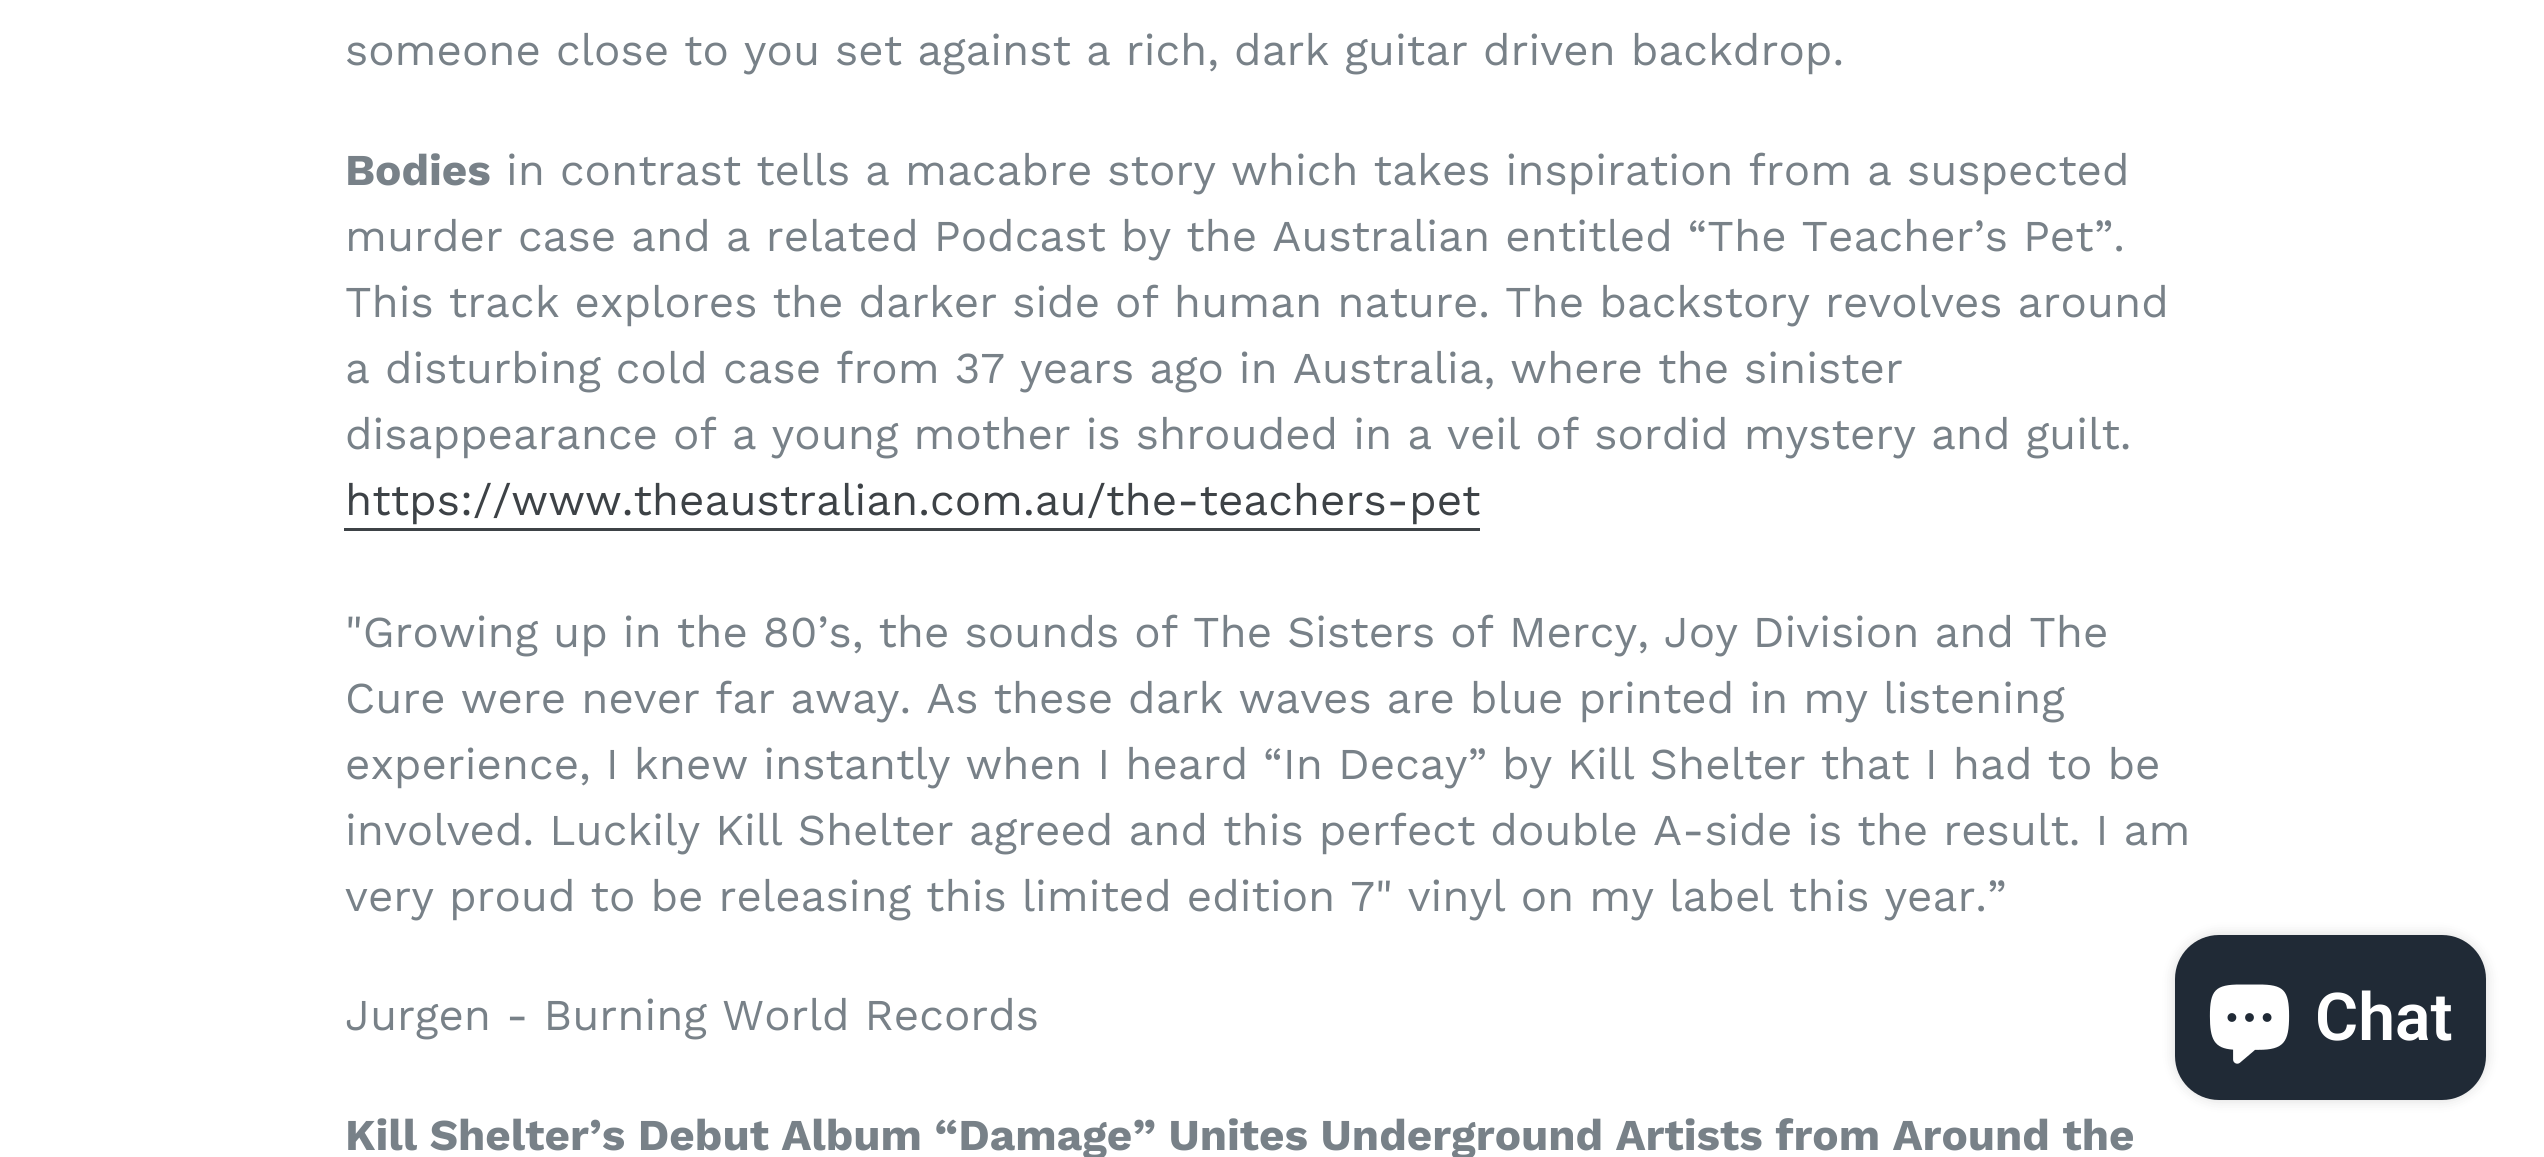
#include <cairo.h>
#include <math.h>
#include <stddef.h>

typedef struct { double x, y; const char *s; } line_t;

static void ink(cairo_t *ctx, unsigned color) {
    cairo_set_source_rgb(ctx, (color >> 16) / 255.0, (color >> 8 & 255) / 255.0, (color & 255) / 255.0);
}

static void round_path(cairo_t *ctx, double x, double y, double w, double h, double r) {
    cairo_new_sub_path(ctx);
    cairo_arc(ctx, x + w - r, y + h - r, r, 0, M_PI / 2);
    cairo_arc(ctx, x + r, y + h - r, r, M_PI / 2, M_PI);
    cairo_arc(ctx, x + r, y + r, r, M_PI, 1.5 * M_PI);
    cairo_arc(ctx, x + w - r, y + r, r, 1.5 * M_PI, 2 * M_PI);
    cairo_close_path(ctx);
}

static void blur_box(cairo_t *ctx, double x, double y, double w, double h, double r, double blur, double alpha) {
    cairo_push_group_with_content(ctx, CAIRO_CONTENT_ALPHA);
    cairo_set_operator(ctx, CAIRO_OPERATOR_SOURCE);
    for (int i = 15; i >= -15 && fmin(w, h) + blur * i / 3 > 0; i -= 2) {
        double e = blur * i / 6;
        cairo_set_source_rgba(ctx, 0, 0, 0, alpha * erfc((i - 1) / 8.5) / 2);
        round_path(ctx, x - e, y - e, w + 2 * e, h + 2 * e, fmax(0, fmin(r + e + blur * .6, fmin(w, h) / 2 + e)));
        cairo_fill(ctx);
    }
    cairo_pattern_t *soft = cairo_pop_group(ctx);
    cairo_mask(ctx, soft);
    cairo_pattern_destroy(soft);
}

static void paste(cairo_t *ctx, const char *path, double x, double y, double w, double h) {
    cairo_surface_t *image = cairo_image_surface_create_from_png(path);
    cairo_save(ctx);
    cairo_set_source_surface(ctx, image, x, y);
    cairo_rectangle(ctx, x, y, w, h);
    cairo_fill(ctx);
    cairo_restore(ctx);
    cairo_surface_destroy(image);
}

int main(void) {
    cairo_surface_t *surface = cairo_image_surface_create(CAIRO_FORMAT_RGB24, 2544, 1157);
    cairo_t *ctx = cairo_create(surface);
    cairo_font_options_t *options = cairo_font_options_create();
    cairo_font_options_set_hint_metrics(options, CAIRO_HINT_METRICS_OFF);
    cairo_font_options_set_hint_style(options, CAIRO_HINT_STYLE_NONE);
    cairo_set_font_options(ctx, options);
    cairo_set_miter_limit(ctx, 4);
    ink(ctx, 0xFFFFFF);
    cairo_paint(ctx);
    cairo_select_font_face(ctx, "Work Sans", CAIRO_FONT_SLANT_NORMAL, CAIRO_FONT_WEIGHT_NORMAL);
    cairo_set_font_size(ctx, 44);
    ink(ctx, 0x788188);
    cairo_move_to(ctx, 345, 65);
    cairo_show_text(ctx, "someone close to you set against a rich, dark guitar driven backdrop.");
    cairo_select_font_face(ctx, "Work Sans", CAIRO_FONT_SLANT_NORMAL, CAIRO_FONT_WEIGHT_BOLD);
    cairo_move_to(ctx, 345, 185);
    cairo_show_text(ctx, "Bodies");
    cairo_select_font_face(ctx, "Work Sans", CAIRO_FONT_SLANT_NORMAL, CAIRO_FONT_WEIGHT_NORMAL);
    {
        static const line_t items[] = {
            {506, 185, "in contrast tells a macabre story which takes inspiration from a suspected"},
            {345, 251, "murder case and a related Podcast by the Australian entitled “The Teacher’s Pet”."},
            {345, 317, "This track explores the darker side of human nature. The backstory revolves around"},
            {345, 383, "a disturbing cold case from 37 years ago in Australia, where the sinister"},
            {345, 449, "disappearance of a young mother is shrouded in a veil of sordid mystery and guilt."},
        };
        for (size_t i = 0; i < sizeof items / sizeof *items; i++) {
            cairo_move_to(ctx, items[i].x, items[i].y);
            cairo_show_text(ctx, items[i].s);
        }
    }
    ink(ctx, 0x3D4246);
    cairo_move_to(ctx, 345, 515);
    cairo_show_text(ctx, "https://www.theaustralian.com.au/the-teachers-pet");
    cairo_rectangle(ctx, 344, 528, 1136, 3);
    cairo_fill(ctx);
    ink(ctx, 0x788188);
    {
        static const line_t items[] = {
            {345, 647, "\"Growing up in the 80’s, the sounds of The Sisters of Mercy, Joy Division and The"},
            {345, 713, "Cure were never far away. As these dark waves are blue printed in my listening"},
            {345, 779, "experience, I knew instantly when I heard “In Decay” by Kill Shelter that I had to be"},
            {345, 845, "involved. Luckily Kill Shelter agreed and this perfect double A-side is the result. I am"},
            {345, 911, "very proud to be releasing this limited edition 7\" vinyl on my label this year.”"},
            {345, 1030, "Jurgen - Burning World Records"},
        };
        for (size_t i = 0; i < sizeof items / sizeof *items; i++) {
            cairo_move_to(ctx, items[i].x, items[i].y);
            cairo_show_text(ctx, items[i].s);
        }
    }
    cairo_select_font_face(ctx, "Work Sans", CAIRO_FONT_SLANT_NORMAL, CAIRO_FONT_WEIGHT_BOLD);
    cairo_move_to(ctx, 345, 1150);
    cairo_show_text(ctx, "Kill Shelter’s Debut Album “Damage” Unites Underground Artists from Around the");
    ink(ctx, 0x000000);
    blur_box(ctx, 2175, 935, 311, 165, 44, 7, 0.15);
    ink(ctx, 0x202A36);
    round_path(ctx, 2175, 935, 311, 165, 44);
    cairo_fill(ctx);
    paste(ctx, "media/1.png", 2209, 984, 81, 80);
    cairo_select_font_face(ctx, "Roboto SemiBold", CAIRO_FONT_SLANT_NORMAL, CAIRO_FONT_WEIGHT_NORMAL);
    cairo_set_font_size(ctx, 66);
    ink(ctx, 0xFFFFFF);
    cairo_move_to(ctx, 2315, 1040);
    cairo_show_text(ctx, "Chat");
    cairo_surface_write_to_png(surface, "image.png");
    cairo_font_options_destroy(options);
    cairo_destroy(ctx);
    cairo_surface_destroy(surface);
    return 0;
}
